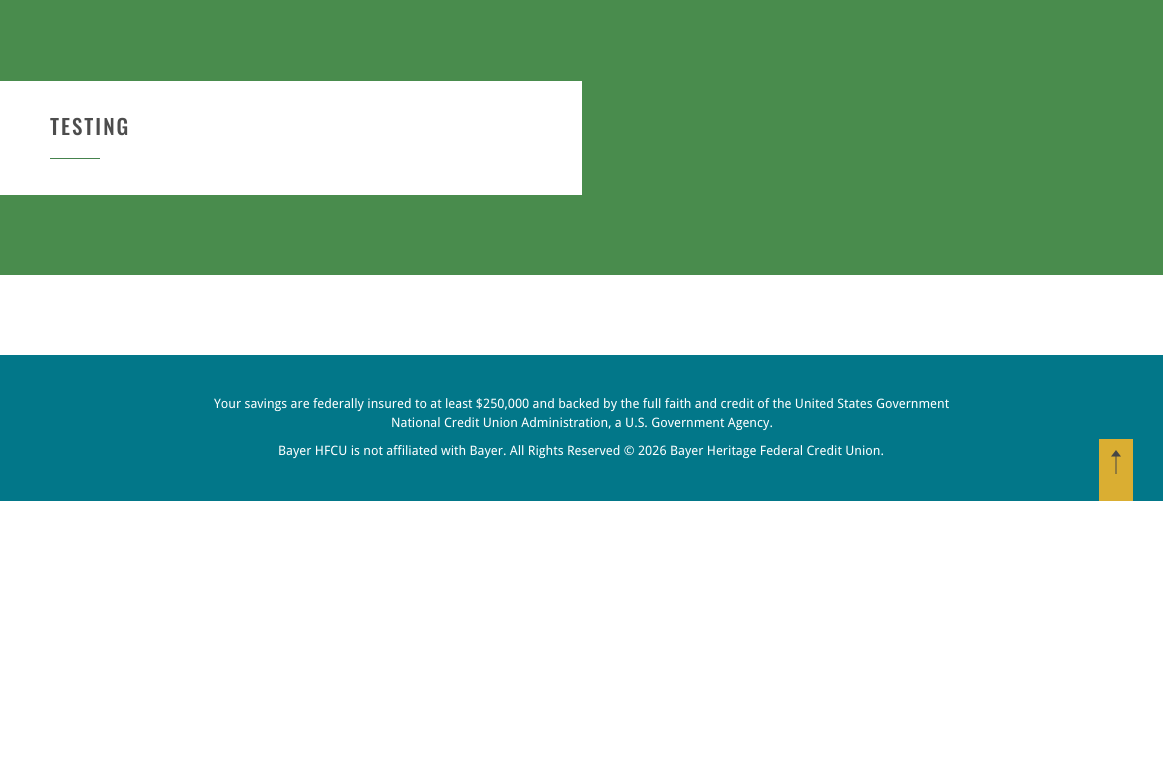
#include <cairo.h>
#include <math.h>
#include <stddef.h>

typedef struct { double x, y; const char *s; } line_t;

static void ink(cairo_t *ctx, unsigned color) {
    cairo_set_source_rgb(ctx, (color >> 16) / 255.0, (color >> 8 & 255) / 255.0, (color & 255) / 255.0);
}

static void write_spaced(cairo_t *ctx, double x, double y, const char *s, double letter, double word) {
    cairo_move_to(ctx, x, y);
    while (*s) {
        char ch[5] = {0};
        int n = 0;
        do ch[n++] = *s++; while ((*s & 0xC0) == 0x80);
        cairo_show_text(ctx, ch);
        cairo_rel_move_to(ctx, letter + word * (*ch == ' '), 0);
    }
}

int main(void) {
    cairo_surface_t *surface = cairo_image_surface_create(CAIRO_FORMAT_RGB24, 1163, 757);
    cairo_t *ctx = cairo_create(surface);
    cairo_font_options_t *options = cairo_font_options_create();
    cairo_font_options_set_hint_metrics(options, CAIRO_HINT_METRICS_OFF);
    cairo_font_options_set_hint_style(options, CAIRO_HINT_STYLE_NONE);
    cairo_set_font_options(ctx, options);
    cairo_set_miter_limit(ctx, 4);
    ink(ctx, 0xFFFFFF);
    cairo_paint(ctx);
    ink(ctx, 0x498C4D);
    cairo_rectangle(ctx, 0, 0, 1163, 275);
    cairo_fill(ctx);
    ink(ctx, 0xFFFFFF);
    cairo_rectangle(ctx, 0, 81, 582, 114);
    cairo_fill(ctx);
    cairo_select_font_face(ctx, "Oswald Medium", CAIRO_FONT_SLANT_NORMAL, CAIRO_FONT_WEIGHT_NORMAL);
    cairo_set_font_size(ctx, 21);
    ink(ctx, 0x4D4D4D);
    write_spaced(ctx, 50, 135, "TESTING", 2, 0);
    ink(ctx, 0x45824D);
    cairo_rectangle(ctx, 50, 158, 50, 1);
    cairo_fill(ctx);
    ink(ctx, 0x027789);
    cairo_rectangle(ctx, 0, 355, 1163, 146);
    cairo_fill(ctx);
    cairo_select_font_face(ctx, "Droid Sans", CAIRO_FONT_SLANT_NORMAL, CAIRO_FONT_WEIGHT_NORMAL);
    cairo_set_font_size(ctx, 13);
    ink(ctx, 0xFFFFFF);
    {
        static const line_t items[] = {
            {214, 408, "Your savings are federally insured to at least $250,000 and backed by the full faith and credit of the United States Government"},
            {391, 427, "National Credit Union Administration, a U.S. Government Agency."},
            {278, 455, "Bayer HFCU is not affiliated with Bayer. All Rights Reserved © 2026 Bayer Heritage Federal Credit Union."},
        };
        for (size_t i = 0; i < sizeof items / sizeof *items; i++) {
            cairo_move_to(ctx, items[i].x, items[i].y);
            cairo_show_text(ctx, items[i].s);
        }
    }
    ink(ctx, 0xDAAE32);
    cairo_rectangle(ctx, 1099, 439, 34, 62);
    cairo_fill(ctx);
    ink(ctx, 0x464646);
    cairo_new_path(ctx);
    cairo_move_to(ctx, 1121, 456.5);
    cairo_line_to(ctx, 1116, 450);
    cairo_line_to(ctx, 1111, 456.5);
    cairo_line_to(ctx, 1115.5, 456.5);
    cairo_line_to(ctx, 1115.5, 474);
    cairo_line_to(ctx, 1116.5, 474);
    cairo_line_to(ctx, 1116.5, 456.5);
    cairo_close_path(ctx);
    cairo_fill(ctx);
    cairo_surface_write_to_png(surface, "image.png");
    cairo_font_options_destroy(options);
    cairo_destroy(ctx);
    cairo_surface_destroy(surface);
    return 0;
}
